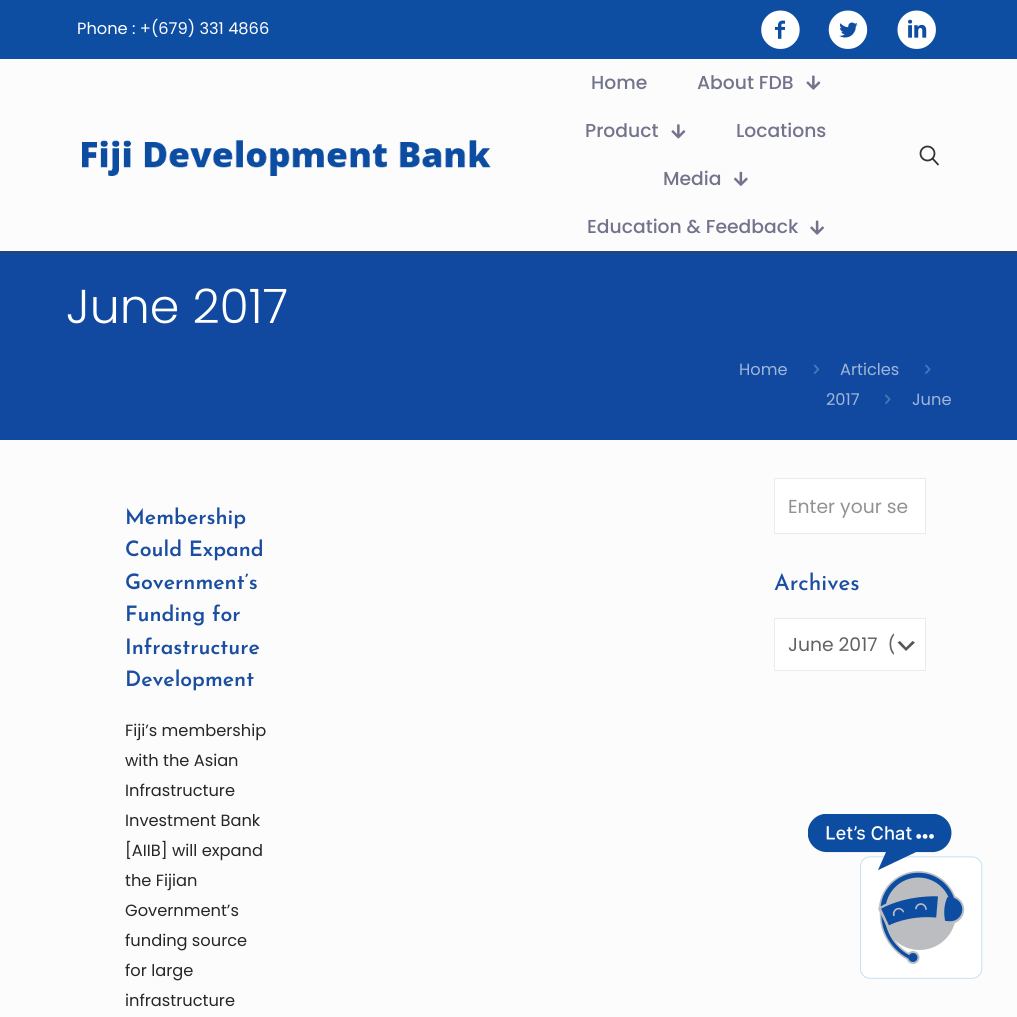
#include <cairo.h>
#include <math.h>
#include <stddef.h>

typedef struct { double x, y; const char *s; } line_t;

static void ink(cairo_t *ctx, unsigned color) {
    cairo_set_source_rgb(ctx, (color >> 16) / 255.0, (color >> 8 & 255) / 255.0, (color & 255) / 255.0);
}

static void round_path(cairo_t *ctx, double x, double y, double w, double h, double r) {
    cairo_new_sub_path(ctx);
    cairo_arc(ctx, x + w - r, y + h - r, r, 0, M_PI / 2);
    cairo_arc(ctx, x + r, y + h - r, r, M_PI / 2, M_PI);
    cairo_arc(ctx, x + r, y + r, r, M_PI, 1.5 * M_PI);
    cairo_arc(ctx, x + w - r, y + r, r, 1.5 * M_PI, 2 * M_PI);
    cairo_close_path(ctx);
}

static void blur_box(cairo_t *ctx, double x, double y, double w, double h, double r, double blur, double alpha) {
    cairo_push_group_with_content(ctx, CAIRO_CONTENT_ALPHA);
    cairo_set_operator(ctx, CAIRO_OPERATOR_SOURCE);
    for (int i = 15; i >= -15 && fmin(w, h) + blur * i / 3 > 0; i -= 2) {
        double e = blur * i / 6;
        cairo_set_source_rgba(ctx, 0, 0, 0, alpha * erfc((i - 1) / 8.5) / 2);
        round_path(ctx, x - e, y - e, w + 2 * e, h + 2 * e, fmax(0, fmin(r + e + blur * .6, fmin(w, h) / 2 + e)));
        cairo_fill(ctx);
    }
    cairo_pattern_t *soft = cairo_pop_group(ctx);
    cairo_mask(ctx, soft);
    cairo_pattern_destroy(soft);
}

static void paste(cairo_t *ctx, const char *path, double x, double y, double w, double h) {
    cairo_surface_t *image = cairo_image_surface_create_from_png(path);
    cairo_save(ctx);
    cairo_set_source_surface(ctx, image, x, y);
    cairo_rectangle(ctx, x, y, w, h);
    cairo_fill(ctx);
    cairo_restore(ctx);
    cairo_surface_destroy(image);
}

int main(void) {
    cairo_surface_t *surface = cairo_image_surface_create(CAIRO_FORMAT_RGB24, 1017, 1017);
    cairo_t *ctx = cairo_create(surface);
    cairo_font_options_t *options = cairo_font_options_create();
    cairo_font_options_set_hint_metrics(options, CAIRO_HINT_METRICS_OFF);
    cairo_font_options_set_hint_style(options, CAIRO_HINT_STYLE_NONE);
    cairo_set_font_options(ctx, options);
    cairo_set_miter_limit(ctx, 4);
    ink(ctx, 0xFCFCFC);
    cairo_paint(ctx);
    ink(ctx, 0x1149A0);
    cairo_rectangle(ctx, 0, 251, 1017, 189);
    cairo_fill(ctx);
    cairo_save(ctx);
    cairo_rectangle(ctx, 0, 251, 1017, 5);
    cairo_clip(ctx);
    ink(ctx, 0x3C4043);
    blur_box(ctx, -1, 0, 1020, 254, 0, 2, 0.15);
    cairo_restore(ctx);
    cairo_save(ctx);
    cairo_rectangle(ctx, 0, 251, 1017, 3);
    cairo_clip(ctx);
    ink(ctx, 0x3C4043);
    blur_box(ctx, 0, 1, 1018, 252, 0, 1, 0.3);
    cairo_restore(ctx);
    ink(ctx, 0x0D4EA2);
    cairo_rectangle(ctx, 0, 0, 1017, 59);
    cairo_fill(ctx);
    cairo_select_font_face(ctx, "Poppins", CAIRO_FONT_SLANT_NORMAL, CAIRO_FONT_WEIGHT_NORMAL);
    cairo_set_font_size(ctx, 16.25);
    ink(ctx, 0xFFFFFF);
    cairo_move_to(ctx, 77, 34);
    cairo_show_text(ctx, "Phone : +(679) 331 4866");
    paste(ctx, "media/1.png", 761, 10, 39, 39);
    paste(ctx, "media/2.png", 828, 10, 40, 39);
    paste(ctx, "media/3.png", 897, 10, 39, 39);
    paste(ctx, "media/4.png", 82, 140, 409, 36);
    cairo_select_font_face(ctx, "Poppins Medium", CAIRO_FONT_SLANT_NORMAL, CAIRO_FONT_WEIGHT_NORMAL);
    cairo_set_font_size(ctx, 18.75);
    ink(ctx, 0x73748C);
    cairo_move_to(ctx, 591, 89);
    cairo_show_text(ctx, "Home");
    cairo_move_to(ctx, 697, 89);
    cairo_show_text(ctx, "About FDB");
    paste(ctx, "media/5.png", 806, 75, 15, 15);
    cairo_move_to(ctx, 585, 137);
    cairo_show_text(ctx, "Product");
    paste(ctx, "media/6.png", 671, 124, 15, 15);
    cairo_move_to(ctx, 736, 137);
    cairo_show_text(ctx, "Locations");
    cairo_move_to(ctx, 663, 185);
    cairo_show_text(ctx, "Media");
    paste(ctx, "media/7.png", 734, 171, 14, 15);
    cairo_move_to(ctx, 587, 233);
    cairo_show_text(ctx, "Education & Feedback");
    paste(ctx, "media/8.png", 810, 220, 14, 15);
    cairo_arc(ctx, 927.5, 153.5, 7, 0, 2 * M_PI);
    ink(ctx, 0x333333);
    cairo_set_line_width(ctx, 1.8);
    cairo_stroke(ctx);
    cairo_new_path(ctx);
    cairo_move_to(ctx, 932.5, 158.5);
    cairo_line_to(ctx, 938.5, 165);
    cairo_stroke(ctx);
    cairo_select_font_face(ctx, "Poppins Light", CAIRO_FONT_SLANT_NORMAL, CAIRO_FONT_WEIGHT_NORMAL);
    cairo_set_font_size(ctx, 47.5);
    ink(ctx, 0xFFFFFF);
    cairo_move_to(ctx, 66, 323);
    cairo_show_text(ctx, "June 2017");
    cairo_select_font_face(ctx, "Poppins", CAIRO_FONT_SLANT_NORMAL, CAIRO_FONT_WEIGHT_NORMAL);
    cairo_set_font_size(ctx, 16.25);
    ink(ctx, 0xA0B6D9);
    cairo_move_to(ctx, 739, 375);
    cairo_show_text(ctx, "Home");
    paste(ctx, "media/9.png", 813, 364, 7, 10);
    cairo_move_to(ctx, 840, 375);
    cairo_show_text(ctx, "Articles");
    paste(ctx, "media/10.png", 925, 364, 6, 10);
    cairo_move_to(ctx, 826, 405);
    cairo_show_text(ctx, "2017");
    paste(ctx, "media/10.png", 885, 394, 6, 10);
    cairo_move_to(ctx, 912, 405);
    cairo_show_text(ctx, "June");
    cairo_select_font_face(ctx, "Josefin Sans SemiBold", CAIRO_FONT_SLANT_NORMAL, CAIRO_FONT_WEIGHT_NORMAL);
    cairo_set_font_size(ctx, 21.25);
    ink(ctx, 0x1A4EA1);
    {
        static const line_t items[] = {
            {125, 524, "Membership"},
            {125, 556, "Could Expand"},
            {125, 589, "Government’s"},
            {125, 621, "Funding for"},
            {125, 654, "Infrastructure"},
            {125, 686, "Development"},
        };
        for (size_t i = 0; i < sizeof items / sizeof *items; i++) {
            cairo_move_to(ctx, items[i].x, items[i].y);
            cairo_show_text(ctx, items[i].s);
        }
    }
    cairo_select_font_face(ctx, "Poppins", CAIRO_FONT_SLANT_NORMAL, CAIRO_FONT_WEIGHT_NORMAL);
    cairo_set_font_size(ctx, 16.25);
    ink(ctx, 0x262626);
    {
        static const line_t items[] = {
            {125, 736, "Fiji’s membership"},
            {125, 766, "with the Asian"},
            {125, 796, "Infrastructure"},
            {125, 826, "Investment Bank"},
            {125, 856, "[AIIB] will expand"},
            {125, 886, "the Fijian"},
            {125, 916, "Government’s"},
            {125, 946, "funding source"},
            {125, 976, "for large"},
            {125, 1006, "infrastructure"},
        };
        for (size_t i = 0; i < sizeof items / sizeof *items; i++) {
            cairo_move_to(ctx, items[i].x, items[i].y);
            cairo_show_text(ctx, items[i].s);
        }
    }
    ink(ctx, 0xFFFFFF);
    cairo_rectangle(ctx, 774.5, 478.5, 151, 55);
    cairo_fill_preserve(ctx);
    ink(ctx, 0xEBEBEB);
    cairo_set_line_width(ctx, 1);
    cairo_stroke(ctx);
    cairo_set_font_size(ctx, 18.75);
    ink(ctx, 0x929292);
    cairo_move_to(ctx, 788, 513);
    cairo_show_text(ctx, "Enter your se");
    cairo_select_font_face(ctx, "Josefin Sans Medium", CAIRO_FONT_SLANT_NORMAL, CAIRO_FONT_WEIGHT_NORMAL);
    cairo_set_font_size(ctx, 22.5);
    ink(ctx, 0x1A4EA1);
    cairo_move_to(ctx, 774, 590);
    cairo_show_text(ctx, "Archives");
    ink(ctx, 0xFFFFFF);
    cairo_rectangle(ctx, 775, 619, 150, 51);
    cairo_fill(ctx);
    ink(ctx, 0x555555);
    cairo_new_path(ctx);
    cairo_move_to(ctx, 900, 641);
    cairo_line_to(ctx, 906, 647.5);
    cairo_line_to(ctx, 912.5, 641);
    cairo_line_to(ctx, 915, 642.5);
    cairo_line_to(ctx, 906, 651);
    cairo_line_to(ctx, 897.5, 642.5);
    cairo_close_path(ctx);
    cairo_fill(ctx);
    cairo_rectangle(ctx, 774.5, 618.5, 151, 52);
    ink(ctx, 0xEBEBEB);
    cairo_stroke(ctx);
    cairo_save(ctx);
    cairo_rectangle(ctx, 788, 631, 106, 27);
    cairo_clip(ctx);
    cairo_select_font_face(ctx, "Poppins", CAIRO_FONT_SLANT_NORMAL, CAIRO_FONT_WEIGHT_NORMAL);
    cairo_set_font_size(ctx, 18.75);
    ink(ctx, 0x626262);
    cairo_move_to(ctx, 788, 651);
    cairo_show_text(ctx, "June 2017  (");
    cairo_restore(ctx);
    paste(ctx, "media/11.png", 808, 814, 175, 165);
    cairo_surface_write_to_png(surface, "image.png");
    cairo_font_options_destroy(options);
    cairo_destroy(ctx);
    cairo_surface_destroy(surface);
    return 0;
}
